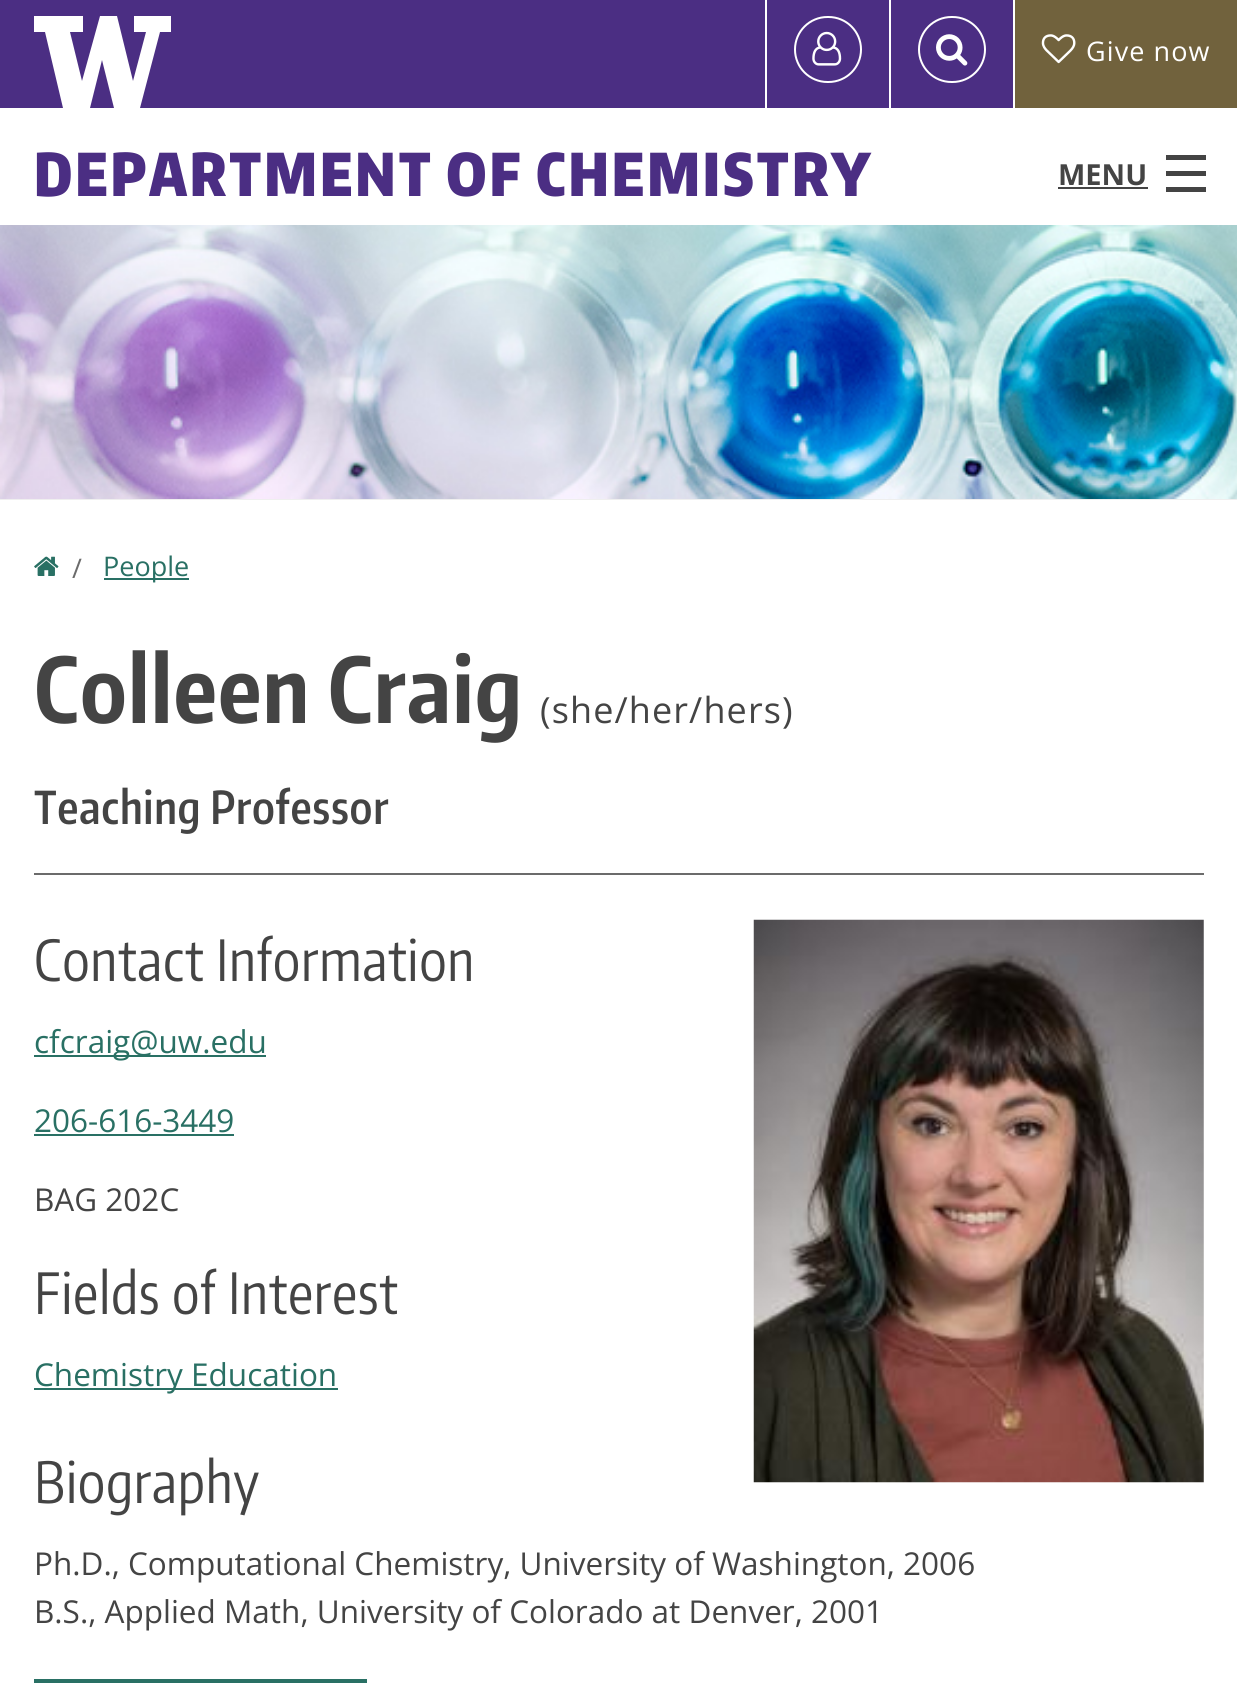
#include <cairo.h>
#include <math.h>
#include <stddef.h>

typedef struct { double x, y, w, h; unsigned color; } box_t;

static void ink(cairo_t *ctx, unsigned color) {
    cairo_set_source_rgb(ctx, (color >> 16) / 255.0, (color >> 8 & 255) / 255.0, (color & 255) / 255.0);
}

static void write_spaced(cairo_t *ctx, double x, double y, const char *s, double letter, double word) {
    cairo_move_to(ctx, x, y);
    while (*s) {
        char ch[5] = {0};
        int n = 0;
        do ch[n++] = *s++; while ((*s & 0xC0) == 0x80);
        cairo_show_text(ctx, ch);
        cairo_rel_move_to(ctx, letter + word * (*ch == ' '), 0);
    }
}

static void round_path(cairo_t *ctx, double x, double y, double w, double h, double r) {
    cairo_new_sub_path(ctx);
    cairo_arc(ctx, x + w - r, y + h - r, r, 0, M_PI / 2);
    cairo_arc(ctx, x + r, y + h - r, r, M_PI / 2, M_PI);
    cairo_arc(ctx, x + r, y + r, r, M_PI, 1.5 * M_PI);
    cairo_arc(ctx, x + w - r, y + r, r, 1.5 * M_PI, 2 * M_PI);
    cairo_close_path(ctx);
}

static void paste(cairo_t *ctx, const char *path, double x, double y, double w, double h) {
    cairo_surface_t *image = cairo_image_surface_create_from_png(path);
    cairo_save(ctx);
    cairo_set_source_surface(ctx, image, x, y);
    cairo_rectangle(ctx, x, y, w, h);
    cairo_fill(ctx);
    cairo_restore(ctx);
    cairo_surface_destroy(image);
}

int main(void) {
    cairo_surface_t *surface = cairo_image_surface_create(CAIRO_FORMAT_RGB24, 1237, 1683);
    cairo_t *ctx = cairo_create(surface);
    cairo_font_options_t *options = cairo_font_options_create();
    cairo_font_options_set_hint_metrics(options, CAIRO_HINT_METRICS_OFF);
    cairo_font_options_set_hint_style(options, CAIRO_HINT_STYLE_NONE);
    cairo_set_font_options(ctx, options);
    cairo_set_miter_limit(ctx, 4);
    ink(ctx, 0xFFFFFF);
    cairo_paint(ctx);
    ink(ctx, 0x4B2E83);
    cairo_rectangle(ctx, 0, 0, 1013, 108);
    cairo_fill(ctx);
    ink(ctx, 0xFFFFFF);
    cairo_new_path(ctx);
    cairo_move_to(ctx, 134, 16);
    cairo_line_to(ctx, 134, 32);
    cairo_line_to(ctx, 146, 32);
    cairo_line_to(ctx, 133, 81);
    cairo_line_to(ctx, 117, 16);
    cairo_line_to(ctx, 100, 16);
    cairo_line_to(ctx, 82, 81);
    cairo_line_to(ctx, 70, 32);
    cairo_line_to(ctx, 83, 32);
    cairo_line_to(ctx, 83, 16);
    cairo_line_to(ctx, 34, 16);
    cairo_line_to(ctx, 34, 32);
    cairo_line_to(ctx, 45, 32);
    cairo_line_to(ctx, 63, 108);
    cairo_line_to(ctx, 90, 108);
    cairo_line_to(ctx, 102, 60);
    cairo_line_to(ctx, 114, 108);
    cairo_line_to(ctx, 140, 108);
    cairo_line_to(ctx, 160, 32);
    cairo_line_to(ctx, 171, 32);
    cairo_line_to(ctx, 171, 16);
    cairo_close_path(ctx);
    cairo_fill(ctx);
    cairo_rectangle(ctx, 765, 0, 2, 108);
    cairo_fill(ctx);
    round_path(ctx, 795, 17, 66, 65, 32.5);
    cairo_stroke(ctx);
    paste(ctx, "media/1.png", 812, 31, 30, 35);
    cairo_rectangle(ctx, 889, 0, 2, 108);
    cairo_fill(ctx);
    round_path(ctx, 919, 17, 66, 65, 32.5);
    cairo_stroke(ctx);
    paste(ctx, "media/2.png", 936, 34, 32, 32);
    ink(ctx, 0x71623D);
    cairo_rectangle(ctx, 1015, 0, 222, 108);
    cairo_fill(ctx);
    paste(ctx, "media/3.png", 1041, 34, 35, 30);
    cairo_select_font_face(ctx, "Open Sans", CAIRO_FONT_SLANT_NORMAL, CAIRO_FONT_WEIGHT_NORMAL);
    cairo_set_font_size(ctx, 27);
    ink(ctx, 0xFFFFFF);
    write_spaced(ctx, 1086, 61, "Give now", 1.1, 0);
    cairo_select_font_face(ctx, "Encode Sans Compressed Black", CAIRO_FONT_SLANT_NORMAL, CAIRO_FONT_WEIGHT_NORMAL);
    cairo_set_font_size(ctx, 58.5);
    ink(ctx, 0x4B2E83);
    write_spaced(ctx, 34, 196, "DEPARTMENT OF CHEMISTRY", 2.9, 0);
    cairo_select_font_face(ctx, "Open Sans", CAIRO_FONT_SLANT_NORMAL, CAIRO_FONT_WEIGHT_BOLD);
    cairo_set_font_size(ctx, 29);
    ink(ctx, 0x444444);
    cairo_move_to(ctx, 1058, 185);
    cairo_show_text(ctx, "MENU");
    {
        static const box_t items[] = {
            {1058, 187, 90, 2, 0x444444},
            {1166, 187, 40, 5, 0x444444},
            {1166, 171, 40, 5, 0x444444},
            {1166, 155, 40, 5, 0x444444},
            {0, 499, 1237, 1, 0xEFEFEF},
        };
        for (size_t i = 0; i < sizeof items / sizeof *items; i++) {
            ink(ctx, items[i].color);
            cairo_rectangle(ctx, items[i].x, items[i].y, items[i].w, items[i].h);
            cairo_fill(ctx);
        }
    }
    paste(ctx, "media/4.png", 0, 225, 1237, 274);
    paste(ctx, "media/5.png", 34, 556, 25, 20);
    cairo_select_font_face(ctx, "Open Sans", CAIRO_FONT_SLANT_NORMAL, CAIRO_FONT_WEIGHT_NORMAL);
    cairo_set_font_size(ctx, 27);
    ink(ctx, 0x6B6B6B);
    cairo_move_to(ctx, 72, 578);
    cairo_show_text(ctx, "/");
    ink(ctx, 0x297064);
    cairo_rectangle(ctx, 104, 578, 85, 2);
    cairo_fill(ctx);
    cairo_move_to(ctx, 103, 576);
    cairo_show_text(ctx, "People");
    cairo_select_font_face(ctx, "Encode Sans Compressed", CAIRO_FONT_SLANT_NORMAL, CAIRO_FONT_WEIGHT_BOLD);
    cairo_set_font_size(ctx, 90);
    ink(ctx, 0x444444);
    write_spaced(ctx, 34, 723, "Colleen Craig", 1.1, 0);
    cairo_select_font_face(ctx, "Open Sans", CAIRO_FONT_SLANT_NORMAL, CAIRO_FONT_WEIGHT_NORMAL);
    cairo_set_font_size(ctx, 36);
    write_spaced(ctx, 540, 723, "(she/her/hers)", 1.1, 0);
    cairo_select_font_face(ctx, "Encode Sans Compressed SemiBold", CAIRO_FONT_SLANT_NORMAL, CAIRO_FONT_WEIGHT_NORMAL);
    cairo_set_font_size(ctx, 45);
    write_spaced(ctx, 34, 824, "Teaching Professor", 0.7, 0);
    ink(ctx, 0x6B6B6B);
    cairo_rectangle(ctx, 34, 873, 1170, 2);
    cairo_fill(ctx);
    cairo_select_font_face(ctx, "Encode Sans Compressed", CAIRO_FONT_SLANT_NORMAL, CAIRO_FONT_WEIGHT_NORMAL);
    cairo_set_font_size(ctx, 56.25);
    ink(ctx, 0x444444);
    write_spaced(ctx, 34, 981, "Contact Information", 0.7, 0);
    ink(ctx, 0x297064);
    cairo_rectangle(ctx, 34, 1055, 232, 2);
    cairo_fill(ctx);
    cairo_select_font_face(ctx, "Open Sans", CAIRO_FONT_SLANT_NORMAL, CAIRO_FONT_WEIGHT_NORMAL);
    cairo_set_font_size(ctx, 31.5);
    cairo_move_to(ctx, 34, 1053);
    cairo_show_text(ctx, "cfcraig@uw.edu");
    cairo_move_to(ctx, 34, 1132);
    cairo_show_text(ctx, "206-616-3449");
    cairo_rectangle(ctx, 34, 1134, 200, 2);
    cairo_fill(ctx);
    ink(ctx, 0x444444);
    cairo_move_to(ctx, 34, 1211);
    cairo_show_text(ctx, "BAG 202C");
    paste(ctx, "media/6.png", 753, 919, 451, 564);
    cairo_select_font_face(ctx, "Encode Sans Compressed", CAIRO_FONT_SLANT_NORMAL, CAIRO_FONT_WEIGHT_NORMAL);
    cairo_set_font_size(ctx, 56.25);
    write_spaced(ctx, 34, 1314, "Fields of Interest", 0.7, 0);
    ink(ctx, 0x297064);
    cairo_rectangle(ctx, 34, 1388, 304, 2);
    cairo_fill(ctx);
    cairo_select_font_face(ctx, "Open Sans", CAIRO_FONT_SLANT_NORMAL, CAIRO_FONT_WEIGHT_NORMAL);
    cairo_set_font_size(ctx, 31.5);
    cairo_move_to(ctx, 34, 1386);
    cairo_show_text(ctx, "Chemistry Education");
    cairo_select_font_face(ctx, "Encode Sans Compressed", CAIRO_FONT_SLANT_NORMAL, CAIRO_FONT_WEIGHT_NORMAL);
    cairo_set_font_size(ctx, 56.25);
    ink(ctx, 0x444444);
    write_spaced(ctx, 34, 1503, "Biography", 0.7, 0);
    cairo_select_font_face(ctx, "Open Sans", CAIRO_FONT_SLANT_NORMAL, CAIRO_FONT_WEIGHT_NORMAL);
    cairo_set_font_size(ctx, 31.5);
    cairo_move_to(ctx, 34, 1575);
    cairo_show_text(ctx, "Ph.D., Computational Chemistry, University of Washington, 2006");
    cairo_move_to(ctx, 34, 1623);
    cairo_show_text(ctx, "B.S., Applied Math, University of Colorado at Denver, 2001");
    ink(ctx, 0x297064);
    cairo_rectangle(ctx, 34, 1679, 333, 4);
    cairo_fill(ctx);
    cairo_surface_write_to_png(surface, "image.png");
    cairo_font_options_destroy(options);
    cairo_destroy(ctx);
    cairo_surface_destroy(surface);
    return 0;
}
